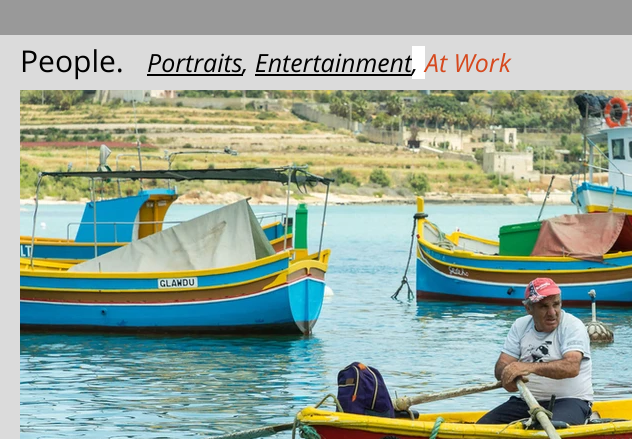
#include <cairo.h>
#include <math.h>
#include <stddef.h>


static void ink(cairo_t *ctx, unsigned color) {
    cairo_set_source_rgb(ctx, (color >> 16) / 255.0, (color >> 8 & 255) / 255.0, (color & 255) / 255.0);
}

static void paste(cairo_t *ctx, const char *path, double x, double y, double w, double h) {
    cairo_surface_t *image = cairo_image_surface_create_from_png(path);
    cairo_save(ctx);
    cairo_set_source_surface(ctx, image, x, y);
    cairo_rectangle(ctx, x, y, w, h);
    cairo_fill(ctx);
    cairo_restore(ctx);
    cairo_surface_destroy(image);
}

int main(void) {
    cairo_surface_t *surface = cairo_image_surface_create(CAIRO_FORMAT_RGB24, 632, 439);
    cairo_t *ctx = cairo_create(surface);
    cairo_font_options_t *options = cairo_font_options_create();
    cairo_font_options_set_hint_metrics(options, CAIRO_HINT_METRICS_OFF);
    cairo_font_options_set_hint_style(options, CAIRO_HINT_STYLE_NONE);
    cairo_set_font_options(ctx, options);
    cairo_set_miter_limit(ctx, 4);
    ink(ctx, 0x999999);
    cairo_paint(ctx);
    ink(ctx, 0xDBDBDB);
    cairo_rectangle(ctx, 0, 35, 632, 404);
    cairo_fill(ctx);
    cairo_select_font_face(ctx, "Open Sans", CAIRO_FONT_SLANT_NORMAL, CAIRO_FONT_WEIGHT_NORMAL);
    cairo_set_font_size(ctx, 30);
    ink(ctx, 0x000000);
    cairo_move_to(ctx, 20, 72);
    cairo_show_text(ctx, "People.");
    cairo_rectangle(ctx, 147, 74, 96, 2);
    cairo_fill(ctx);
    cairo_select_font_face(ctx, "Open Sans", CAIRO_FONT_SLANT_ITALIC, CAIRO_FONT_WEIGHT_NORMAL);
    cairo_set_font_size(ctx, 25);
    cairo_move_to(ctx, 147, 72);
    cairo_show_text(ctx, "Portraits, Entertainment");
    ink(ctx, 0xFFFFFF);
    cairo_rectangle(ctx, 412, 46, 13, 33);
    cairo_fill(ctx);
    ink(ctx, 0xD6491E);
    cairo_move_to(ctx, 425, 72);
    cairo_show_text(ctx, "At Work");
    ink(ctx, 0x000000);
    cairo_rectangle(ctx, 255, 74, 157, 2);
    cairo_fill(ctx);
    cairo_move_to(ctx, 412, 72);
    cairo_show_text(ctx, ",");
    paste(ctx, "media/1.png", 20, 90, 612, 349);
    cairo_surface_write_to_png(surface, "image.png");
    cairo_font_options_destroy(options);
    cairo_destroy(ctx);
    cairo_surface_destroy(surface);
    return 0;
}
